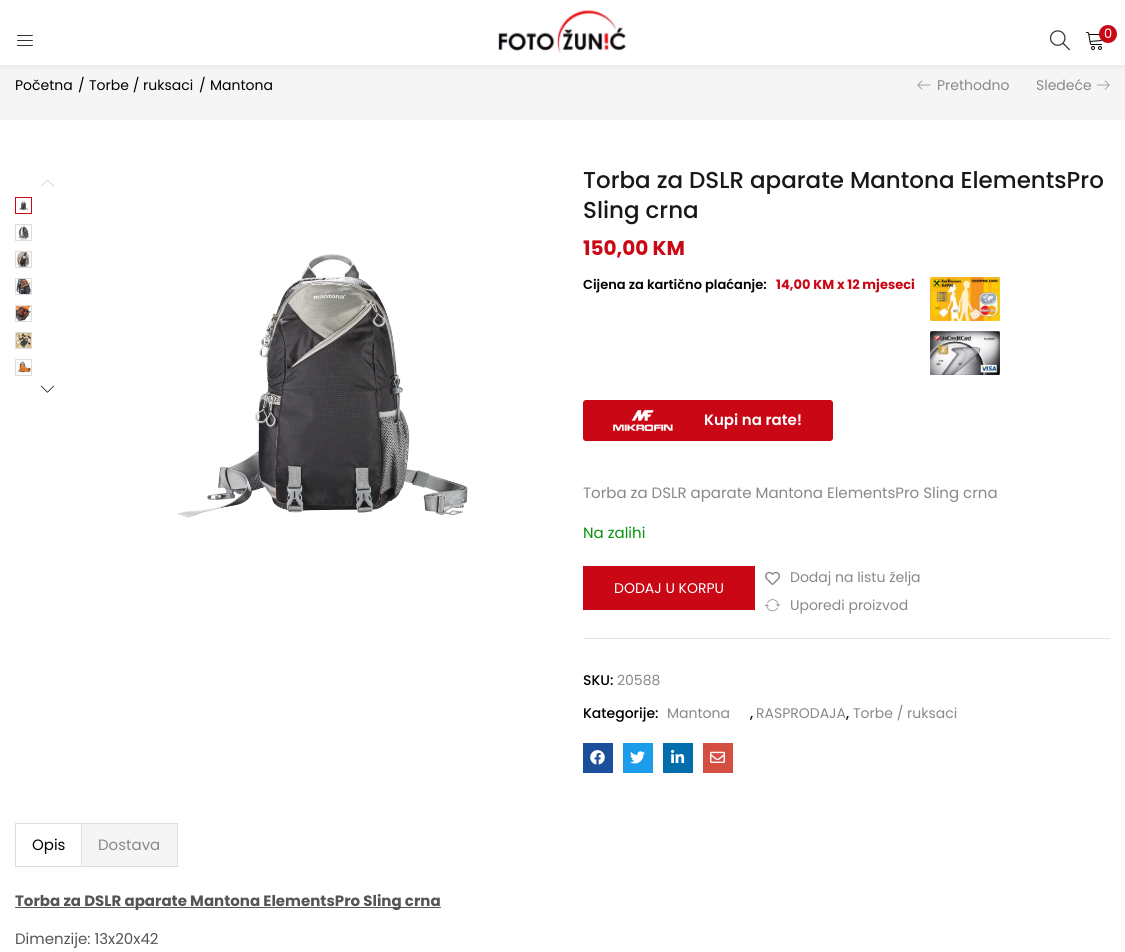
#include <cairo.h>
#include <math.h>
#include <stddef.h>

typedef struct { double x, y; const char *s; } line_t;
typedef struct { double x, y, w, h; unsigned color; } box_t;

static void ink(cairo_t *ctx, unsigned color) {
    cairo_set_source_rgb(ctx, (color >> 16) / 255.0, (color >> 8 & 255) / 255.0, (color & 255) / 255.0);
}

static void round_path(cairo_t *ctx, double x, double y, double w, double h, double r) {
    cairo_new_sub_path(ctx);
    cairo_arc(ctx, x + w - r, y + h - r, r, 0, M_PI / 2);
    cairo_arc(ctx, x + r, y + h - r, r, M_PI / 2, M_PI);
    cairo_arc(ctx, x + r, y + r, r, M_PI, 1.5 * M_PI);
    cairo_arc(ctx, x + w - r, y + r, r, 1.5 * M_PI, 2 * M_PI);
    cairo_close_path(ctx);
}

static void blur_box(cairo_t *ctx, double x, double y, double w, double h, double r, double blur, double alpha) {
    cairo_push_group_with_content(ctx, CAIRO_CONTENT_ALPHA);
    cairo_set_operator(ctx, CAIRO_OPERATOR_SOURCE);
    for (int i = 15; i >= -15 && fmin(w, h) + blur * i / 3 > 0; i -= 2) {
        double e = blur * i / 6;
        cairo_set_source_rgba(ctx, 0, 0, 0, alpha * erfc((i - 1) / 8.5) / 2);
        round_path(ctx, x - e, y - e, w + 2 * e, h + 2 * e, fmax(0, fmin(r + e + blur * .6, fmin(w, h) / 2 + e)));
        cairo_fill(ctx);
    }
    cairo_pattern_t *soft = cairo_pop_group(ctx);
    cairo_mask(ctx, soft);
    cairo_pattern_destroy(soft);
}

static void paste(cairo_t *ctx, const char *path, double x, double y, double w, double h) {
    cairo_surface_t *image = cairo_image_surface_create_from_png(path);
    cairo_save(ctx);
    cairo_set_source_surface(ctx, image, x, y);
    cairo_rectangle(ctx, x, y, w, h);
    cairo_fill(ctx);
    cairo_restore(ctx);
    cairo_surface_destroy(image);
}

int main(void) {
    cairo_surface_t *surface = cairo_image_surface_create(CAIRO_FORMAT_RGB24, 1125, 952);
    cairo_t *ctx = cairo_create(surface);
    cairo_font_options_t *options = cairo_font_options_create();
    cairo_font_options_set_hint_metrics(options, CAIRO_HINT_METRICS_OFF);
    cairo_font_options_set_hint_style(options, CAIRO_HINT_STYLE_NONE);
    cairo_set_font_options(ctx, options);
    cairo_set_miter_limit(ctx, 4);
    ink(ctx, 0xFFFFFF);
    cairo_paint(ctx);
    ink(ctx, 0xF5F5F5);
    cairo_rectangle(ctx, 0, 65, 1125, 55);
    cairo_fill(ctx);
    ink(ctx, 0x000000);
    blur_box(ctx, 0, 0, 1125, 65, 0, 4, 0.1);
    ink(ctx, 0xFFFFFF);
    cairo_rectangle(ctx, 0, 0, 1125, 65);
    cairo_fill(ctx);
    paste(ctx, "media/1.png", 498, 9, 129, 46);
    paste(ctx, "media/2.png", 1050, 30, 20, 21);
    paste(ctx, "media/3.png", 1086, 32, 16, 18);
    ink(ctx, 0xCA0815);
    cairo_arc(ctx, 1108, 34, 9, 0, 2 * M_PI);
    cairo_fill(ctx);
    cairo_select_font_face(ctx, "Poppins", CAIRO_FONT_SLANT_NORMAL, CAIRO_FONT_WEIGHT_NORMAL);
    cairo_set_font_size(ctx, 13);
    ink(ctx, 0xFFFFFF);
    cairo_move_to(ctx, 1104, 38);
    cairo_show_text(ctx, "0");
    paste(ctx, "media/4.png", 17, 35, 16, 11);
    cairo_set_font_size(ctx, 14);
    ink(ctx, 0x000000);
    {
        static const line_t items[] = {
            {15, 90, "Početna"},
            {78, 90, "/"},
            {89, 90, "Torbe / ruksaci"},
            {199, 90, "/"},
            {210, 90, "Mantona"},
        };
        for (size_t i = 0; i < sizeof items / sizeof *items; i++) {
            cairo_move_to(ctx, items[i].x, items[i].y);
            cairo_show_text(ctx, items[i].s);
        }
    }
    paste(ctx, "media/5.png", 917, 80, 14, 10);
    ink(ctx, 0x888888);
    cairo_move_to(ctx, 937, 90);
    cairo_show_text(ctx, "Prethodno");
    cairo_move_to(ctx, 1036, 90);
    cairo_show_text(ctx, "Sledeće");
    paste(ctx, "media/6.png", 1096, 80, 14, 10);
    paste(ctx, "media/7.png", 40, 179, 14, 8);
    cairo_rectangle(ctx, 15.5, 197.5, 16, 16);
    ink(ctx, 0xCA0815);
    cairo_set_line_width(ctx, 1);
    cairo_stroke(ctx);
    paste(ctx, "media/8.png", 18, 200, 11, 10);
    cairo_rectangle(ctx, 15.5, 224.5, 16, 16);
    ink(ctx, 0xDDDDDD);
    cairo_stroke(ctx);
    paste(ctx, "media/9.png", 18, 225, 11, 15);
    cairo_rectangle(ctx, 15.5, 251.5, 16, 16);
    cairo_stroke(ctx);
    paste(ctx, "media/10.png", 16, 252, 15, 15);
    cairo_rectangle(ctx, 15.5, 278.5, 16, 16);
    cairo_stroke(ctx);
    paste(ctx, "media/11.png", 16, 279, 15, 15);
    cairo_rectangle(ctx, 15.5, 305.5, 16, 16);
    cairo_stroke(ctx);
    paste(ctx, "media/12.png", 16, 306, 15, 15);
    cairo_rectangle(ctx, 15.5, 332.5, 16, 16);
    cairo_stroke(ctx);
    paste(ctx, "media/13.png", 16, 333, 15, 15);
    cairo_rectangle(ctx, 15.5, 359.5, 16, 16);
    cairo_stroke(ctx);
    paste(ctx, "media/14.png", 16, 361, 15, 12);
    paste(ctx, "media/15.png", 40, 385, 14, 8);
    paste(ctx, "media/16.png", 177, 254, 291, 264);
    cairo_select_font_face(ctx, "Poppins Medium", CAIRO_FONT_SLANT_NORMAL, CAIRO_FONT_WEIGHT_NORMAL);
    cairo_set_font_size(ctx, 23);
    ink(ctx, 0x17181A);
    cairo_move_to(ctx, 583, 188);
    cairo_show_text(ctx, "Torba za DSLR aparate Mantona ElementsPro");
    cairo_move_to(ctx, 583, 218);
    cairo_show_text(ctx, "Sling crna");
    cairo_select_font_face(ctx, "Poppins", CAIRO_FONT_SLANT_NORMAL, CAIRO_FONT_WEIGHT_BOLD);
    cairo_set_font_size(ctx, 20);
    ink(ctx, 0xCA0815);
    cairo_move_to(ctx, 583, 255);
    cairo_show_text(ctx, "150,00 KM");
    cairo_select_font_face(ctx, "Poppins SemiBold", CAIRO_FONT_SLANT_NORMAL, CAIRO_FONT_WEIGHT_NORMAL);
    cairo_set_font_size(ctx, 13);
    ink(ctx, 0x000000);
    cairo_move_to(ctx, 583, 289);
    cairo_show_text(ctx, "Cijena za kartično plaćanje:");
    cairo_select_font_face(ctx, "Poppins", CAIRO_FONT_SLANT_NORMAL, CAIRO_FONT_WEIGHT_BOLD);
    ink(ctx, 0xCA0815);
    cairo_move_to(ctx, 776, 289);
    cairo_show_text(ctx, "14,00 KM x 12 mjeseci");
    paste(ctx, "media/17.png", 930, 277, 70, 44);
    paste(ctx, "media/18.png", 930, 331, 70, 44);
    round_path(ctx, 583, 400, 250, 41, 3);
    cairo_fill(ctx);
    paste(ctx, "media/19.png", 613, 410, 60, 21);
    cairo_select_font_face(ctx, "Poppins SemiBold", CAIRO_FONT_SLANT_NORMAL, CAIRO_FONT_WEIGHT_NORMAL);
    cairo_set_font_size(ctx, 15);
    ink(ctx, 0xFFFFFF);
    cairo_move_to(ctx, 704, 425);
    cairo_show_text(ctx, "Kupi na rate!");
    cairo_select_font_face(ctx, "Poppins", CAIRO_FONT_SLANT_NORMAL, CAIRO_FONT_WEIGHT_NORMAL);
    ink(ctx, 0x888888);
    cairo_move_to(ctx, 583, 498);
    cairo_show_text(ctx, "Torba za DSLR aparate Mantona ElementsPro Sling crna");
    ink(ctx, 0x07930B);
    cairo_move_to(ctx, 583, 538);
    cairo_show_text(ctx, "Na zalihi");
    ink(ctx, 0xCA0815);
    cairo_rectangle(ctx, 583, 566, 172, 44);
    cairo_fill(ctx);
    cairo_set_font_size(ctx, 14);
    ink(ctx, 0xFFFFFF);
    cairo_move_to(ctx, 614, 593);
    cairo_show_text(ctx, "DODAJ U KORPU");
    paste(ctx, "media/20.png", 765, 571, 15, 14);
    ink(ctx, 0x888888);
    cairo_move_to(ctx, 790, 582);
    cairo_show_text(ctx, "Dodaj na listu želja");
    paste(ctx, "media/21.png", 765, 599, 15, 13);
    cairo_move_to(ctx, 790, 610);
    cairo_show_text(ctx, "Uporedi proizvod");
    ink(ctx, 0xE5E5E5);
    cairo_rectangle(ctx, 583, 638, 527, 1);
    cairo_fill(ctx);
    cairo_select_font_face(ctx, "Poppins Medium", CAIRO_FONT_SLANT_NORMAL, CAIRO_FONT_WEIGHT_NORMAL);
    ink(ctx, 0x000000);
    cairo_move_to(ctx, 583, 685);
    cairo_show_text(ctx, "SKU:");
    cairo_select_font_face(ctx, "Poppins", CAIRO_FONT_SLANT_NORMAL, CAIRO_FONT_WEIGHT_NORMAL);
    ink(ctx, 0x888888);
    cairo_move_to(ctx, 617, 685);
    cairo_show_text(ctx, "20588");
    cairo_select_font_face(ctx, "Poppins Medium", CAIRO_FONT_SLANT_NORMAL, CAIRO_FONT_WEIGHT_NORMAL);
    ink(ctx, 0x000000);
    cairo_move_to(ctx, 583, 718);
    cairo_show_text(ctx, "Kategorije:");
    cairo_select_font_face(ctx, "Poppins", CAIRO_FONT_SLANT_NORMAL, CAIRO_FONT_WEIGHT_NORMAL);
    ink(ctx, 0x888888);
    cairo_move_to(ctx, 667, 718);
    cairo_show_text(ctx, "Mantona");
    cairo_select_font_face(ctx, "Poppins Medium", CAIRO_FONT_SLANT_NORMAL, CAIRO_FONT_WEIGHT_NORMAL);
    ink(ctx, 0x000000);
    cairo_move_to(ctx, 750, 718);
    cairo_show_text(ctx, ",");
    cairo_select_font_face(ctx, "Poppins", CAIRO_FONT_SLANT_NORMAL, CAIRO_FONT_WEIGHT_NORMAL);
    ink(ctx, 0x888888);
    cairo_move_to(ctx, 756, 718);
    cairo_show_text(ctx, "RASPRODAJA");
    cairo_select_font_face(ctx, "Poppins Medium", CAIRO_FONT_SLANT_NORMAL, CAIRO_FONT_WEIGHT_NORMAL);
    ink(ctx, 0x000000);
    cairo_move_to(ctx, 846, 718);
    cairo_show_text(ctx, ",");
    cairo_select_font_face(ctx, "Poppins", CAIRO_FONT_SLANT_NORMAL, CAIRO_FONT_WEIGHT_NORMAL);
    ink(ctx, 0x888888);
    cairo_move_to(ctx, 853, 718);
    cairo_show_text(ctx, "Torbe / ruksaci");
    ink(ctx, 0x1B4E9B);
    cairo_rectangle(ctx, 583, 743, 30, 30);
    cairo_fill(ctx);
    paste(ctx, "media/22.png", 590, 750, 15, 15);
    ink(ctx, 0x1C9DEB);
    cairo_rectangle(ctx, 623, 743, 30, 30);
    cairo_fill(ctx);
    paste(ctx, "media/23.png", 630, 751, 15, 13);
    ink(ctx, 0x026FAC);
    cairo_rectangle(ctx, 663, 743, 30, 30);
    cairo_fill(ctx);
    paste(ctx, "media/24.png", 671, 749, 14, 14);
    ink(ctx, 0xD44F42);
    cairo_rectangle(ctx, 703, 743, 30, 30);
    cairo_fill(ctx);
    paste(ctx, "media/25.png", 710, 751, 15, 12);
    cairo_rectangle(ctx, 15.5, 823.5, 66, 43);
    ink(ctx, 0xDDDDDD);
    cairo_stroke(ctx);
    cairo_set_font_size(ctx, 15);
    ink(ctx, 0x000000);
    cairo_move_to(ctx, 32, 850);
    cairo_show_text(ctx, "Opis");
    {
        static const box_t items[] = {
            {82, 823, 96, 1, 0xDDDDDD},
            {177, 823, 1, 44, 0xDDDDDD},
            {82, 866, 96, 1, 0xDDDDDD},
            {82, 824, 95, 42, 0xF5F5F5},
        };
        for (size_t i = 0; i < sizeof items / sizeof *items; i++) {
            ink(ctx, items[i].color);
            cairo_rectangle(ctx, items[i].x, items[i].y, items[i].w, items[i].h);
            cairo_fill(ctx);
        }
    }
    ink(ctx, 0x888888);
    cairo_move_to(ctx, 98, 850);
    cairo_show_text(ctx, "Dostava");
    ink(ctx, 0x555555);
    cairo_rectangle(ctx, 15, 907, 426, 1);
    cairo_fill(ctx);
    cairo_select_font_face(ctx, "Poppins", CAIRO_FONT_SLANT_NORMAL, CAIRO_FONT_WEIGHT_BOLD);
    cairo_move_to(ctx, 15, 906);
    cairo_show_text(ctx, "Torba za DSLR aparate Mantona ElementsPro Sling crna");
    cairo_select_font_face(ctx, "Poppins", CAIRO_FONT_SLANT_NORMAL, CAIRO_FONT_WEIGHT_NORMAL);
    cairo_move_to(ctx, 15, 944);
    cairo_show_text(ctx, "Dimenzije: 13x20x42");
    cairo_surface_write_to_png(surface, "image.png");
    cairo_font_options_destroy(options);
    cairo_destroy(ctx);
    cairo_surface_destroy(surface);
    return 0;
}
